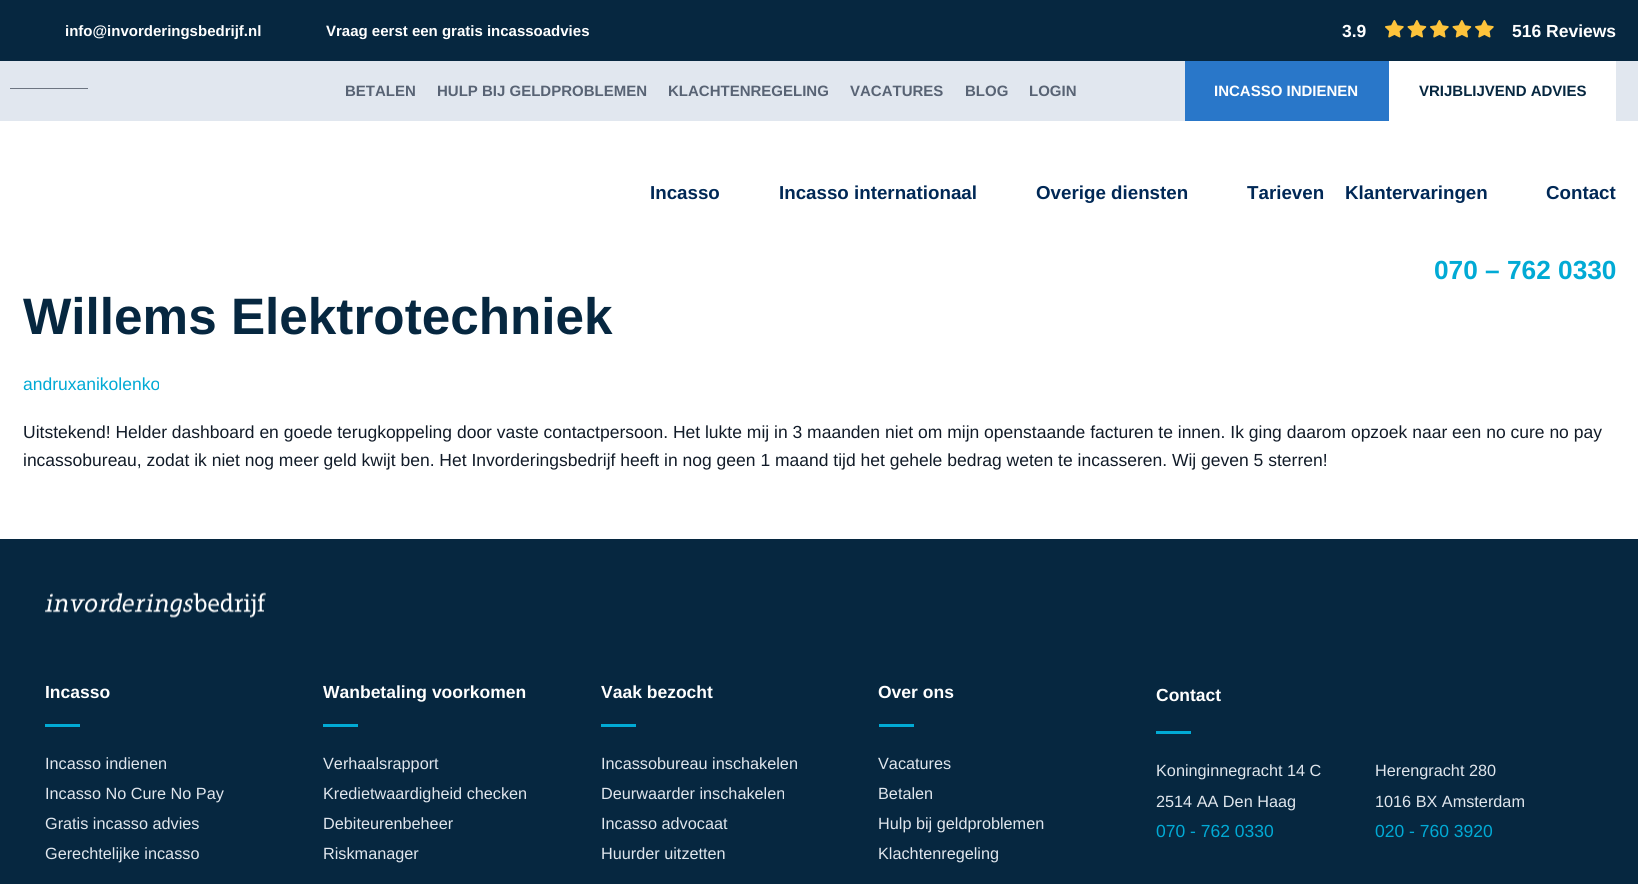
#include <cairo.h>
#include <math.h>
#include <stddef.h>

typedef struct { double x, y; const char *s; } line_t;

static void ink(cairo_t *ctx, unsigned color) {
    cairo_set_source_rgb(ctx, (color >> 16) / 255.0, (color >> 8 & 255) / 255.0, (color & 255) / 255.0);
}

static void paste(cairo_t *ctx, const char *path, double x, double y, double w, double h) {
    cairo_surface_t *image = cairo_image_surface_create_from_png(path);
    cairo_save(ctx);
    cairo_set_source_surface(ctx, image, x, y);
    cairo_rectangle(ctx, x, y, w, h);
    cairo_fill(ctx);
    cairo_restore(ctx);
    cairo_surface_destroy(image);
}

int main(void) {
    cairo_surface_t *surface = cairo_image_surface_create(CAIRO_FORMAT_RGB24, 1638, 884);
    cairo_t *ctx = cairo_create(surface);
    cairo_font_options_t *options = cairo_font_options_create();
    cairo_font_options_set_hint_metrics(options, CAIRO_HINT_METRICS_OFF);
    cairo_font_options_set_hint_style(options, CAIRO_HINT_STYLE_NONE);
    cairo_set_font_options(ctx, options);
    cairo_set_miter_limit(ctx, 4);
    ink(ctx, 0xFFFFFF);
    cairo_paint(ctx);
    ink(ctx, 0x062740);
    cairo_rectangle(ctx, 0, 0, 1638, 61);
    cairo_fill(ctx);
    cairo_select_font_face(ctx, "Liberation Sans", CAIRO_FONT_SLANT_NORMAL, CAIRO_FONT_WEIGHT_BOLD);
    cairo_set_font_size(ctx, 15);
    ink(ctx, 0xFFFFFF);
    cairo_move_to(ctx, 65, 36);
    cairo_show_text(ctx, "info@invorderingsbedrijf.nl");
    cairo_move_to(ctx, 326, 36);
    cairo_show_text(ctx, "Vraag eerst een gratis incassoadvies");
    cairo_set_font_size(ctx, 17.5);
    cairo_move_to(ctx, 1342, 37);
    cairo_show_text(ctx, "3.9");
    paste(ctx, "media/1.png", 1385, 20, 109, 18);
    cairo_move_to(ctx, 1512, 37);
    cairo_show_text(ctx, "516 Reviews");
    ink(ctx, 0xE1E7EF);
    cairo_rectangle(ctx, 0, 61, 1638, 60);
    cairo_fill(ctx);
    cairo_set_font_size(ctx, 15);
    ink(ctx, 0x586374);
    {
        static const line_t items[] = {
            {345, 96, "BETALEN"},
            {437, 96, "HULP BIJ GELDPROBLEMEN"},
            {668, 96, "KLACHTENREGELING"},
            {850, 96, "VACATURES"},
            {965, 96, "BLOG"},
            {1029, 96, "LOGIN"},
        };
        for (size_t i = 0; i < sizeof items / sizeof *items; i++) {
            cairo_move_to(ctx, items[i].x, items[i].y);
            cairo_show_text(ctx, items[i].s);
        }
    }
    ink(ctx, 0x2977C9);
    cairo_rectangle(ctx, 1185, 61, 204, 60);
    cairo_fill(ctx);
    ink(ctx, 0xFFFFFF);
    cairo_move_to(ctx, 1214, 96);
    cairo_show_text(ctx, "INCASSO INDIENEN");
    cairo_rectangle(ctx, 1389, 61, 227, 60);
    cairo_fill(ctx);
    ink(ctx, 0x062740);
    cairo_move_to(ctx, 1419, 96);
    cairo_show_text(ctx, "VRIJBLIJVEND ADVIES");
    ink(ctx, 0x6D7581);
    cairo_rectangle(ctx, 10, 88, 78, 1);
    cairo_fill(ctx);
    cairo_set_font_size(ctx, 18.75);
    ink(ctx, 0x002856);
    {
        static const line_t items[] = {
            {650, 199, "Incasso"},
            {779, 199, "Incasso internationaal"},
            {1036, 199, "Overige diensten"},
            {1247, 199, "Tarieven"},
            {1345, 199, "Klantervaringen"},
            {1546, 199, "Contact"},
        };
        for (size_t i = 0; i < sizeof items / sizeof *items; i++) {
            cairo_move_to(ctx, items[i].x, items[i].y);
            cairo_show_text(ctx, items[i].s);
        }
    }
    cairo_set_font_size(ctx, 26.25);
    ink(ctx, 0x01AAD5);
    cairo_move_to(ctx, 1434, 279);
    cairo_show_text(ctx, "070 – 762 0330");
    cairo_set_font_size(ctx, 51.25);
    ink(ctx, 0x062740);
    cairo_move_to(ctx, 23, 334);
    cairo_show_text(ctx, "Willems Elektrotechniek");
    cairo_select_font_face(ctx, "Liberation Sans", CAIRO_FONT_SLANT_NORMAL, CAIRO_FONT_WEIGHT_NORMAL);
    cairo_set_font_size(ctx, 17.5);
    ink(ctx, 0x01AAD5);
    cairo_move_to(ctx, 23, 390);
    cairo_show_text(ctx, "andruxanikolenko");
    ink(ctx, 0x111B28);
    cairo_move_to(ctx, 23, 438);
    cairo_show_text(ctx, "Uitstekend! Helder dashboard en goede terugkoppeling door vaste contactpersoon. Het lukte mij in 3 maanden niet om mijn openstaande facturen te innen. Ik ging daarom opzoek naar een no cure no pay");
    cairo_move_to(ctx, 23, 466);
    cairo_show_text(ctx, "incassobureau, zodat ik niet nog meer geld kwijt ben. Het Invorderingsbedrijf heeft in nog geen 1 maand tijd het gehele bedrag weten te incasseren. Wij geven 5 sterren!");
    ink(ctx, 0x062740);
    cairo_rectangle(ctx, 0, 539, 1638, 345);
    cairo_fill(ctx);
    paste(ctx, "media/2.png", 45, 592, 221, 26);
    cairo_select_font_face(ctx, "Liberation Sans", CAIRO_FONT_SLANT_NORMAL, CAIRO_FONT_WEIGHT_BOLD);
    ink(ctx, 0xFFFFFF);
    cairo_move_to(ctx, 45, 698);
    cairo_show_text(ctx, "Incasso");
    ink(ctx, 0x01AAD5);
    cairo_rectangle(ctx, 45, 724, 35, 3);
    cairo_fill(ctx);
    cairo_select_font_face(ctx, "Liberation Sans", CAIRO_FONT_SLANT_NORMAL, CAIRO_FONT_WEIGHT_NORMAL);
    cairo_set_font_size(ctx, 16.25);
    ink(ctx, 0xE0E6ED);
    {
        static const line_t items[] = {
            {45, 769, "Incasso indienen"},
            {45, 799, "Incasso No Cure No Pay"},
            {45, 829, "Gratis incasso advies"},
            {45, 859, "Gerechtelijke incasso"},
        };
        for (size_t i = 0; i < sizeof items / sizeof *items; i++) {
            cairo_move_to(ctx, items[i].x, items[i].y);
            cairo_show_text(ctx, items[i].s);
        }
    }
    cairo_select_font_face(ctx, "Liberation Sans", CAIRO_FONT_SLANT_NORMAL, CAIRO_FONT_WEIGHT_BOLD);
    cairo_set_font_size(ctx, 17.5);
    ink(ctx, 0xFFFFFF);
    cairo_move_to(ctx, 323, 698);
    cairo_show_text(ctx, "Wanbetaling voorkomen");
    ink(ctx, 0x01AAD5);
    cairo_rectangle(ctx, 323, 724, 35, 3);
    cairo_fill(ctx);
    cairo_select_font_face(ctx, "Liberation Sans", CAIRO_FONT_SLANT_NORMAL, CAIRO_FONT_WEIGHT_NORMAL);
    cairo_set_font_size(ctx, 16.25);
    ink(ctx, 0xE0E6ED);
    {
        static const line_t items[] = {
            {323, 769, "Verhaalsrapport"},
            {323, 799, "Kredietwaardigheid checken"},
            {323, 829, "Debiteurenbeheer"},
            {323, 859, "Riskmanager"},
        };
        for (size_t i = 0; i < sizeof items / sizeof *items; i++) {
            cairo_move_to(ctx, items[i].x, items[i].y);
            cairo_show_text(ctx, items[i].s);
        }
    }
    cairo_select_font_face(ctx, "Liberation Sans", CAIRO_FONT_SLANT_NORMAL, CAIRO_FONT_WEIGHT_BOLD);
    cairo_set_font_size(ctx, 17.5);
    ink(ctx, 0xFFFFFF);
    cairo_move_to(ctx, 601, 698);
    cairo_show_text(ctx, "Vaak bezocht");
    ink(ctx, 0x01AAD5);
    cairo_rectangle(ctx, 601, 724, 35, 3);
    cairo_fill(ctx);
    cairo_select_font_face(ctx, "Liberation Sans", CAIRO_FONT_SLANT_NORMAL, CAIRO_FONT_WEIGHT_NORMAL);
    cairo_set_font_size(ctx, 16.25);
    ink(ctx, 0xE0E6ED);
    {
        static const line_t items[] = {
            {601, 769, "Incassobureau inschakelen"},
            {601, 799, "Deurwaarder inschakelen"},
            {601, 829, "Incasso advocaat"},
            {601, 859, "Huurder uitzetten"},
        };
        for (size_t i = 0; i < sizeof items / sizeof *items; i++) {
            cairo_move_to(ctx, items[i].x, items[i].y);
            cairo_show_text(ctx, items[i].s);
        }
    }
    cairo_select_font_face(ctx, "Liberation Sans", CAIRO_FONT_SLANT_NORMAL, CAIRO_FONT_WEIGHT_BOLD);
    cairo_set_font_size(ctx, 17.5);
    ink(ctx, 0xFFFFFF);
    cairo_move_to(ctx, 878, 698);
    cairo_show_text(ctx, "Over ons");
    ink(ctx, 0x01AAD5);
    cairo_rectangle(ctx, 879, 724, 35, 3);
    cairo_fill(ctx);
    cairo_select_font_face(ctx, "Liberation Sans", CAIRO_FONT_SLANT_NORMAL, CAIRO_FONT_WEIGHT_NORMAL);
    cairo_set_font_size(ctx, 16.25);
    ink(ctx, 0xE0E6ED);
    {
        static const line_t items[] = {
            {878, 769, "Vacatures"},
            {878, 799, "Betalen"},
            {878, 829, "Hulp bij geldproblemen"},
            {878, 859, "Klachtenregeling"},
        };
        for (size_t i = 0; i < sizeof items / sizeof *items; i++) {
            cairo_move_to(ctx, items[i].x, items[i].y);
            cairo_show_text(ctx, items[i].s);
        }
    }
    cairo_select_font_face(ctx, "Liberation Sans", CAIRO_FONT_SLANT_NORMAL, CAIRO_FONT_WEIGHT_BOLD);
    cairo_set_font_size(ctx, 17.5);
    ink(ctx, 0xFFFFFF);
    cairo_move_to(ctx, 1156, 701);
    cairo_show_text(ctx, "Contact");
    ink(ctx, 0x01AAD5);
    cairo_rectangle(ctx, 1156, 731, 35, 3);
    cairo_fill(ctx);
    cairo_select_font_face(ctx, "Liberation Sans", CAIRO_FONT_SLANT_NORMAL, CAIRO_FONT_WEIGHT_NORMAL);
    cairo_set_font_size(ctx, 16.25);
    ink(ctx, 0xE0E6ED);
    cairo_move_to(ctx, 1156, 776);
    cairo_show_text(ctx, "Koninginnegracht 14 C");
    cairo_move_to(ctx, 1156, 807);
    cairo_show_text(ctx, "2514 AA Den Haag");
    cairo_set_font_size(ctx, 17.5);
    ink(ctx, 0x01AAD5);
    cairo_move_to(ctx, 1156, 837);
    cairo_show_text(ctx, "070 - 762 0330");
    cairo_set_font_size(ctx, 16.25);
    ink(ctx, 0xE0E6ED);
    cairo_move_to(ctx, 1375, 776);
    cairo_show_text(ctx, "Herengracht 280");
    cairo_move_to(ctx, 1375, 807);
    cairo_show_text(ctx, "1016 BX Amsterdam");
    cairo_set_font_size(ctx, 17.5);
    ink(ctx, 0x01AAD5);
    cairo_move_to(ctx, 1375, 837);
    cairo_show_text(ctx, "020 - 760 3920");
    cairo_surface_write_to_png(surface, "image.png");
    cairo_font_options_destroy(options);
    cairo_destroy(ctx);
    cairo_surface_destroy(surface);
    return 0;
}
